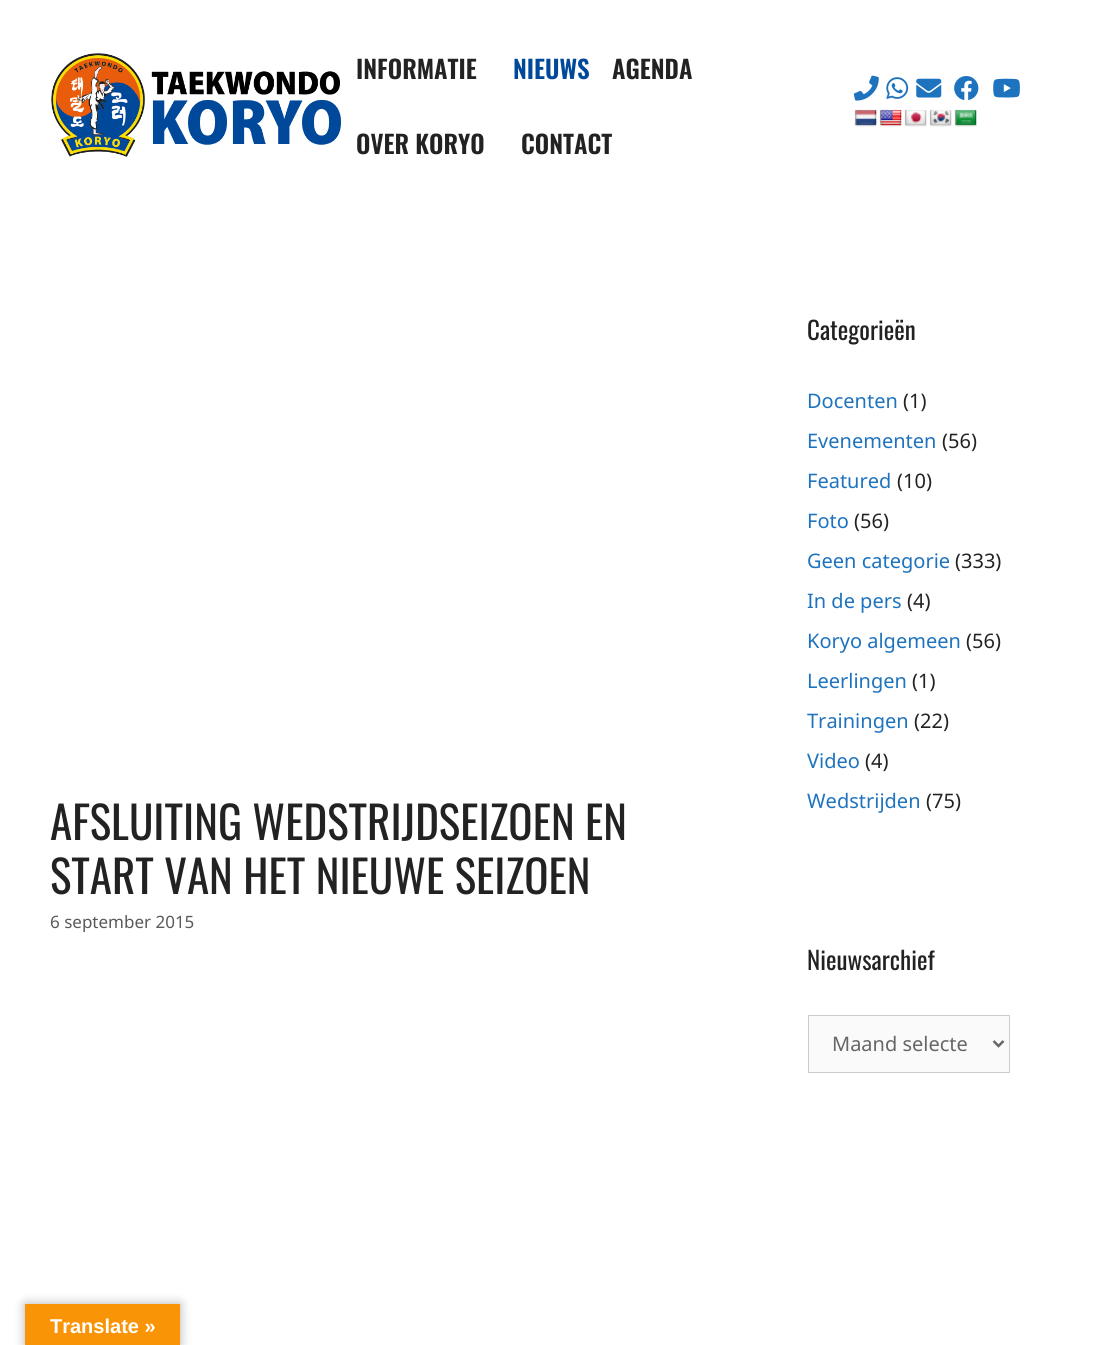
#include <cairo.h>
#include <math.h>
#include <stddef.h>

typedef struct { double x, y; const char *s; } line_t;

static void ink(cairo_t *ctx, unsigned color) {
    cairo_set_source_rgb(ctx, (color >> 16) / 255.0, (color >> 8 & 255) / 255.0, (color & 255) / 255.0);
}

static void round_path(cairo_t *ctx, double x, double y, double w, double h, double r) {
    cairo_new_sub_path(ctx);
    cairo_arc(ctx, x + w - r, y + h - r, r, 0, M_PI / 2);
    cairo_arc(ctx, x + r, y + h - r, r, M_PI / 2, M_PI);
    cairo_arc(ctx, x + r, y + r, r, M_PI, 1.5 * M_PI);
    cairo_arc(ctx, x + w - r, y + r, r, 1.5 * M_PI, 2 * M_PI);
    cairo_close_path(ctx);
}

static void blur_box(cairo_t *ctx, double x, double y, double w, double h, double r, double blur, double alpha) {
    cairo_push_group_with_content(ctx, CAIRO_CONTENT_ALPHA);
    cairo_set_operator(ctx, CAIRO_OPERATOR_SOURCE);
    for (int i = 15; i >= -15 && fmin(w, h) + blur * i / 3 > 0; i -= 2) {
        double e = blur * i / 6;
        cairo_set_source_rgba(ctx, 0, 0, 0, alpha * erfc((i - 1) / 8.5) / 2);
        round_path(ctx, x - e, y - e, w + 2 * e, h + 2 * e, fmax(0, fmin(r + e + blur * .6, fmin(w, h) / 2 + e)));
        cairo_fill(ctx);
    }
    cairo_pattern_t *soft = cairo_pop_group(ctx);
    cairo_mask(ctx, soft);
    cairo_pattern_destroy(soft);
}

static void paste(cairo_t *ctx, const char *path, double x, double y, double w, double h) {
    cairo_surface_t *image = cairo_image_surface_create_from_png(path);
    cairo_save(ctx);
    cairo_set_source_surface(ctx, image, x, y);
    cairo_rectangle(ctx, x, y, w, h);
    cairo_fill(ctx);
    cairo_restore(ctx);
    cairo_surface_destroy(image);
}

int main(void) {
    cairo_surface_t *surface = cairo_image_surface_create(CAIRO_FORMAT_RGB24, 1109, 1345);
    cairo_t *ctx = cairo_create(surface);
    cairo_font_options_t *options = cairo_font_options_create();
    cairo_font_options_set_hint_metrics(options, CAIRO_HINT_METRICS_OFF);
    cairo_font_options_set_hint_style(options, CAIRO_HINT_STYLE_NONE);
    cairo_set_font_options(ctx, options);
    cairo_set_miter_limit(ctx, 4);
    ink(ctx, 0xFFFFFF);
    cairo_paint(ctx);
    paste(ctx, "media/1.png", 51, 53, 290, 104);
    cairo_select_font_face(ctx, "Oswald SemiBold", CAIRO_FONT_SLANT_NORMAL, CAIRO_FONT_WEIGHT_NORMAL);
    cairo_set_font_size(ctx, 25);
    ink(ctx, 0x222222);
    cairo_move_to(ctx, 356, 79);
    cairo_show_text(ctx, "INFORMATIE");
    ink(ctx, 0x00499A);
    cairo_move_to(ctx, 513, 79);
    cairo_show_text(ctx, "NIEUWS");
    ink(ctx, 0x222222);
    {
        static const line_t items[] = {
            {612, 79, "AGENDA"},
            {356, 154, "OVER KORYO"},
            {521, 154, "CONTACT"},
        };
        for (size_t i = 0; i < sizeof items / sizeof *items; i++) {
            cairo_move_to(ctx, items[i].x, items[i].y);
            cairo_show_text(ctx, items[i].s);
        }
    }
    paste(ctx, "media/2.png", 853, 75, 26, 26);
    paste(ctx, "media/3.png", 886, 77, 23, 22);
    paste(ctx, "media/4.png", 916, 78, 26, 20);
    paste(ctx, "media/5.png", 954, 76, 25, 24);
    paste(ctx, "media/6.png", 993, 78, 27, 20);
    paste(ctx, "media/7.png", 854, 109, 23, 18);
    paste(ctx, "media/8.png", 879, 109, 23, 18);
    paste(ctx, "media/9.png", 904, 109, 23, 18);
    paste(ctx, "media/10.png", 929, 109, 23, 18);
    paste(ctx, "media/11.png", 954, 109, 23, 18);
    cairo_select_font_face(ctx, "Oswald", CAIRO_FONT_SLANT_NORMAL, CAIRO_FONT_WEIGHT_NORMAL);
    cairo_set_font_size(ctx, 45);
    cairo_move_to(ctx, 50, 840);
    cairo_show_text(ctx, "AFSLUITING WEDSTRIJDSEIZOEN EN");
    cairo_move_to(ctx, 50, 894);
    cairo_show_text(ctx, "START VAN HET NIEUWE SEIZOEN");
    cairo_select_font_face(ctx, "Noto Sans", CAIRO_FONT_SLANT_NORMAL, CAIRO_FONT_WEIGHT_NORMAL);
    cairo_set_font_size(ctx, 17);
    ink(ctx, 0x595959);
    cairo_move_to(ctx, 50, 928);
    cairo_show_text(ctx, "6 september 2015");
    cairo_select_font_face(ctx, "Oswald", CAIRO_FONT_SLANT_NORMAL, CAIRO_FONT_WEIGHT_NORMAL);
    cairo_set_font_size(ctx, 25);
    ink(ctx, 0x222222);
    cairo_move_to(ctx, 807, 340);
    cairo_show_text(ctx, "Categorieën");
    cairo_select_font_face(ctx, "Noto Sans", CAIRO_FONT_SLANT_NORMAL, CAIRO_FONT_WEIGHT_NORMAL);
    cairo_set_font_size(ctx, 20);
    ink(ctx, 0x1E73BE);
    cairo_move_to(ctx, 807, 408);
    cairo_show_text(ctx, "Docenten");
    ink(ctx, 0x222222);
    cairo_move_to(ctx, 903, 408);
    cairo_show_text(ctx, "(1)");
    ink(ctx, 0x1E73BE);
    cairo_move_to(ctx, 807, 448);
    cairo_show_text(ctx, "Evenementen");
    ink(ctx, 0x222222);
    cairo_move_to(ctx, 942, 448);
    cairo_show_text(ctx, "(56)");
    ink(ctx, 0x1E73BE);
    cairo_move_to(ctx, 807, 488);
    cairo_show_text(ctx, "Featured");
    ink(ctx, 0x222222);
    cairo_move_to(ctx, 897, 488);
    cairo_show_text(ctx, "(10)");
    ink(ctx, 0x1E73BE);
    cairo_move_to(ctx, 807, 528);
    cairo_show_text(ctx, "Foto");
    ink(ctx, 0x222222);
    cairo_move_to(ctx, 854, 528);
    cairo_show_text(ctx, "(56)");
    ink(ctx, 0x1E73BE);
    cairo_move_to(ctx, 807, 568);
    cairo_show_text(ctx, "Geen categorie");
    ink(ctx, 0x222222);
    cairo_move_to(ctx, 955, 568);
    cairo_show_text(ctx, "(333)");
    ink(ctx, 0x1E73BE);
    cairo_move_to(ctx, 807, 608);
    cairo_show_text(ctx, "In de pers");
    ink(ctx, 0x222222);
    cairo_move_to(ctx, 907, 608);
    cairo_show_text(ctx, "(4)");
    ink(ctx, 0x1E73BE);
    cairo_move_to(ctx, 807, 648);
    cairo_show_text(ctx, "Koryo algemeen");
    ink(ctx, 0x222222);
    cairo_move_to(ctx, 966, 648);
    cairo_show_text(ctx, "(56)");
    ink(ctx, 0x1E73BE);
    cairo_move_to(ctx, 807, 688);
    cairo_show_text(ctx, "Leerlingen");
    ink(ctx, 0x222222);
    cairo_move_to(ctx, 912, 688);
    cairo_show_text(ctx, "(1)");
    ink(ctx, 0x1E73BE);
    cairo_move_to(ctx, 807, 728);
    cairo_show_text(ctx, "Trainingen");
    ink(ctx, 0x222222);
    cairo_move_to(ctx, 914, 728);
    cairo_show_text(ctx, "(22)");
    ink(ctx, 0x1E73BE);
    cairo_move_to(ctx, 807, 768);
    cairo_show_text(ctx, "Video");
    ink(ctx, 0x222222);
    cairo_move_to(ctx, 865, 768);
    cairo_show_text(ctx, "(4)");
    ink(ctx, 0x1E73BE);
    cairo_move_to(ctx, 807, 808);
    cairo_show_text(ctx, "Wedstrijden");
    ink(ctx, 0x222222);
    cairo_move_to(ctx, 926, 808);
    cairo_show_text(ctx, "(75)");
    cairo_select_font_face(ctx, "Oswald", CAIRO_FONT_SLANT_NORMAL, CAIRO_FONT_WEIGHT_NORMAL);
    cairo_set_font_size(ctx, 25);
    cairo_move_to(ctx, 807, 970);
    cairo_show_text(ctx, "Nieuwsarchief");
    ink(ctx, 0xFAFAFA);
    cairo_rectangle(ctx, 808.5, 1015.5, 201, 57);
    cairo_fill_preserve(ctx);
    ink(ctx, 0xCCCCCC);
    cairo_set_line_width(ctx, 1);
    cairo_stroke(ctx);
    cairo_new_path(ctx);
    cairo_move_to(ctx, 993.5, 1041);
    cairo_line_to(ctx, 998.5, 1046);
    cairo_line_to(ctx, 1003.5, 1041);
    ink(ctx, 0x666666);
    cairo_set_line_width(ctx, 2.5);
    cairo_stroke(ctx);
    cairo_select_font_face(ctx, "Noto Sans", CAIRO_FONT_SLANT_NORMAL, CAIRO_FONT_WEIGHT_NORMAL);
    cairo_set_font_size(ctx, 20);
    cairo_move_to(ctx, 832, 1051);
    cairo_show_text(ctx, "Maand selecte");
    ink(ctx, 0x000000);
    blur_box(ctx, 25, 1304, 155, 41, 0, 5.5, 0.3);
    ink(ctx, 0xF89406);
    cairo_rectangle(ctx, 25, 1304, 155, 41);
    cairo_fill(ctx);
    cairo_select_font_face(ctx, "Liberation Sans", CAIRO_FONT_SLANT_NORMAL, CAIRO_FONT_WEIGHT_BOLD);
    ink(ctx, 0xFFFFFF);
    cairo_move_to(ctx, 50, 1333);
    cairo_show_text(ctx, "Translate »");
    cairo_surface_write_to_png(surface, "image.png");
    cairo_font_options_destroy(options);
    cairo_destroy(ctx);
    cairo_surface_destroy(surface);
    return 0;
}
